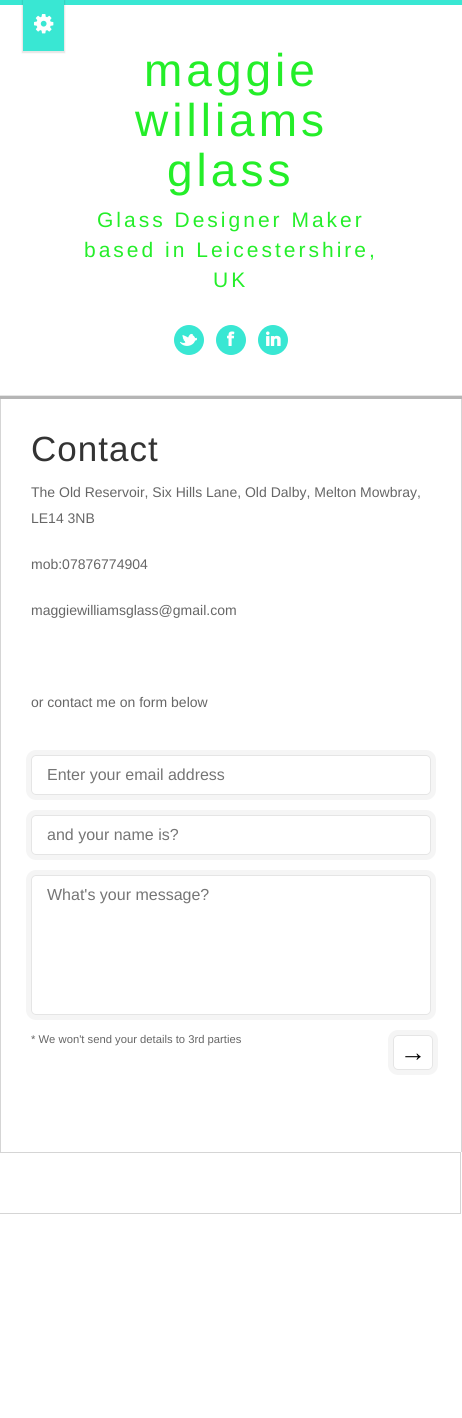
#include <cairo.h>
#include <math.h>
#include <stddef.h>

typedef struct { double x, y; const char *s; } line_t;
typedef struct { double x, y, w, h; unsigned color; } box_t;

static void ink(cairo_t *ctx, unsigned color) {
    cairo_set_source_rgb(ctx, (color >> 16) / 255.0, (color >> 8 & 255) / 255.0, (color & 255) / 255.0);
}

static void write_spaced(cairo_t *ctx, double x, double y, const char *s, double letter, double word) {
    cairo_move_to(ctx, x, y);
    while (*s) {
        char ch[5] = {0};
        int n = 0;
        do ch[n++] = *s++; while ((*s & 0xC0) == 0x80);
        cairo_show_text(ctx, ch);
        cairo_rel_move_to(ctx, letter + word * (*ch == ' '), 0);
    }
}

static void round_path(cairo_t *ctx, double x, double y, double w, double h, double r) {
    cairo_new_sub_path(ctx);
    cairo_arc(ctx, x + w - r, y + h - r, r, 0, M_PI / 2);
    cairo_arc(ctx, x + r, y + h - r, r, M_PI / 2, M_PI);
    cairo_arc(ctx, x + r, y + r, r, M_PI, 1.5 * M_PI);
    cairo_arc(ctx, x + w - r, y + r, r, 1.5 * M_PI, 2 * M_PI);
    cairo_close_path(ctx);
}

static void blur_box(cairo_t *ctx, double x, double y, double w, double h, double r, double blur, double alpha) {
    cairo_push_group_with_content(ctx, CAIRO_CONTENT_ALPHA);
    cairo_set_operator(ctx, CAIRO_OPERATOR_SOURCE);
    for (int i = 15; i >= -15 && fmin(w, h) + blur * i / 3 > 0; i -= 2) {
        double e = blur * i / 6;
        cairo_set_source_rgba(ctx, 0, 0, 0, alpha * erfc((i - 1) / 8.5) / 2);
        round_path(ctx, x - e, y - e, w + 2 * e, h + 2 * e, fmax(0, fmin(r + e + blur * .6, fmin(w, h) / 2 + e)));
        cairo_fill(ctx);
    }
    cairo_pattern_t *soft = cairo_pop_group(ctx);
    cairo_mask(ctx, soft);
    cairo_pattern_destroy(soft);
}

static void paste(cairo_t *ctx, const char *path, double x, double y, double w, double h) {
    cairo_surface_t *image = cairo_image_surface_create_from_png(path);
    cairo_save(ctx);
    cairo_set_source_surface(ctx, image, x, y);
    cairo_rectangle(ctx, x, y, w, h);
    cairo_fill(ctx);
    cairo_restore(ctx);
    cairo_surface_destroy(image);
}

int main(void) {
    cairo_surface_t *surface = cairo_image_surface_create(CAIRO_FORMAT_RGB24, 462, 1418);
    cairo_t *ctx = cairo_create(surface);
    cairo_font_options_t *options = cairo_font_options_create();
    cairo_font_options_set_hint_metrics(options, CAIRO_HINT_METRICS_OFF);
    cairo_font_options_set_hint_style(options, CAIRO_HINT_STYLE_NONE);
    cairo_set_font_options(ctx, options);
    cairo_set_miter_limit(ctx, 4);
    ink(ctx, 0xFFFFFF);
    cairo_paint(ctx);
    ink(ctx, 0x39E7D3);
    cairo_rectangle(ctx, 0, 0, 462, 5);
    cairo_fill(ctx);
    ink(ctx, 0x000000);
    blur_box(ctx, 22, 0, 43, 53, 0, 0.5, 0.1);
    ink(ctx, 0x39E7D3);
    cairo_rectangle(ctx, 23, 0, 41, 51);
    cairo_fill(ctx);
    paste(ctx, "media/1.png", 34, 14, 20, 20);
    cairo_select_font_face(ctx, "Liberation Sans", CAIRO_FONT_SLANT_NORMAL, CAIRO_FONT_WEIGHT_NORMAL);
    cairo_set_font_size(ctx, 46);
    ink(ctx, 0x24EE29);
    {
        static const line_t items[] = {
            {144, 86, "maggie"},
            {135, 136, "williams"},
            {167, 186, "glass"},
        };
        for (size_t i = 0; i < sizeof items / sizeof *items; i++) {
            write_spaced(ctx, items[i].x, items[i].y, items[i].s, 4, 0);
        }
    }
    cairo_set_font_size(ctx, 21);
    {
        static const line_t items[] = {
            {97, 227, "Glass Designer Maker"},
            {84, 257, "based in Leicestershire,"},
            {213, 287, "UK"},
        };
        for (size_t i = 0; i < sizeof items / sizeof *items; i++) {
            write_spaced(ctx, items[i].x, items[i].y, items[i].s, 3, 0);
        }
    }
    ink(ctx, 0x39E7D3);
    cairo_new_path(ctx);
    cairo_arc(ctx, 189, 340, 15, 0, 2 * M_PI);
    cairo_fill(ctx);
    paste(ctx, "media/2.png", 180, 333, 17, 13);
    cairo_arc(ctx, 231, 340, 15, 0, 2 * M_PI);
    cairo_fill(ctx);
    paste(ctx, "media/3.png", 227, 331, 8, 15);
    cairo_arc(ctx, 273, 340, 15, 0, 2 * M_PI);
    cairo_fill(ctx);
    paste(ctx, "media/4.png", 266, 331, 15, 15);
    {
        static const box_t items[] = {
            {0, 395, 462, 1, 0xE5E5E5},
            {0, 396, 462, 3, 0xB5B5B5},
            {461, 399, 1, 753, 0xD5D5D5},
            {0, 399, 1, 753, 0xD5D5D5},
        };
        for (size_t i = 0; i < sizeof items / sizeof *items; i++) {
            ink(ctx, items[i].color);
            cairo_rectangle(ctx, items[i].x, items[i].y, items[i].w, items[i].h);
            cairo_fill(ctx);
        }
    }
    cairo_set_font_size(ctx, 35);
    ink(ctx, 0x333333);
    write_spaced(ctx, 31, 461, "Contact", 1, 0);
    cairo_set_font_size(ctx, 14);
    ink(ctx, 0x666666);
    {
        static const line_t items[] = {
            {31, 497, "The Old Reservoir, Six Hills Lane, Old Dalby, Melton Mowbray,"},
            {31, 523, "LE14 3NB"},
            {31, 569, "mob:07876774904"},
            {31, 615, "maggiewilliamsglass@gmail.com"},
            {31, 707, "or contact me on form below"},
        };
        for (size_t i = 0; i < sizeof items / sizeof *items; i++) {
            cairo_move_to(ctx, items[i].x, items[i].y);
            cairo_show_text(ctx, items[i].s);
        }
    }
    round_path(ctx, 28.5, 752.5, 405, 45, 7.5);
    ink(ctx, 0xF5F5F5);
    cairo_set_line_width(ctx, 5);
    cairo_stroke(ctx);
    round_path(ctx, 31.5, 755.5, 399, 39, 4.5);
    ink(ctx, 0xE5E5E5);
    cairo_set_line_width(ctx, 1);
    cairo_stroke(ctx);
    cairo_set_font_size(ctx, 16);
    ink(ctx, 0x757575);
    cairo_move_to(ctx, 47, 780);
    cairo_show_text(ctx, "Enter your email address");
    round_path(ctx, 28.5, 812.5, 405, 45, 7.5);
    ink(ctx, 0xF5F5F5);
    cairo_set_line_width(ctx, 5);
    cairo_stroke(ctx);
    round_path(ctx, 31.5, 815.5, 399, 39, 4.5);
    ink(ctx, 0xE5E5E5);
    cairo_set_line_width(ctx, 1);
    cairo_stroke(ctx);
    ink(ctx, 0x757575);
    cairo_move_to(ctx, 47, 840);
    cairo_show_text(ctx, "and your name is?");
    round_path(ctx, 28.5, 872.5, 405, 145, 7.5);
    ink(ctx, 0xF5F5F5);
    cairo_set_line_width(ctx, 5);
    cairo_stroke(ctx);
    round_path(ctx, 31.5, 875.5, 399, 139, 4.5);
    ink(ctx, 0xE5E5E5);
    cairo_set_line_width(ctx, 1);
    cairo_stroke(ctx);
    ink(ctx, 0x757575);
    cairo_move_to(ctx, 47, 900);
    cairo_show_text(ctx, "What's your message?");
    cairo_set_font_size(ctx, 11.25);
    ink(ctx, 0x666666);
    cairo_move_to(ctx, 31, 1043);
    cairo_show_text(ctx, "* We won't send your details to 3rd parties");
    round_path(ctx, 390.5, 1032.5, 45, 40, 7.5);
    ink(ctx, 0xF5F5F5);
    cairo_set_line_width(ctx, 5);
    cairo_stroke(ctx);
    round_path(ctx, 393.5, 1035.5, 39, 34, 4.5);
    ink(ctx, 0xE5E5E5);
    cairo_set_line_width(ctx, 1);
    cairo_stroke(ctx);
    cairo_set_font_size(ctx, 26);
    ink(ctx, 0x000000);
    cairo_move_to(ctx, 400, 1061);
    cairo_show_text(ctx, "→");
    cairo_rectangle(ctx, -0.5, 1152.5, 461, 61);
    ink(ctx, 0xD5D5D5);
    cairo_stroke(ctx);
    cairo_surface_write_to_png(surface, "image.png");
    cairo_font_options_destroy(options);
    cairo_destroy(ctx);
    cairo_surface_destroy(surface);
    return 0;
}
